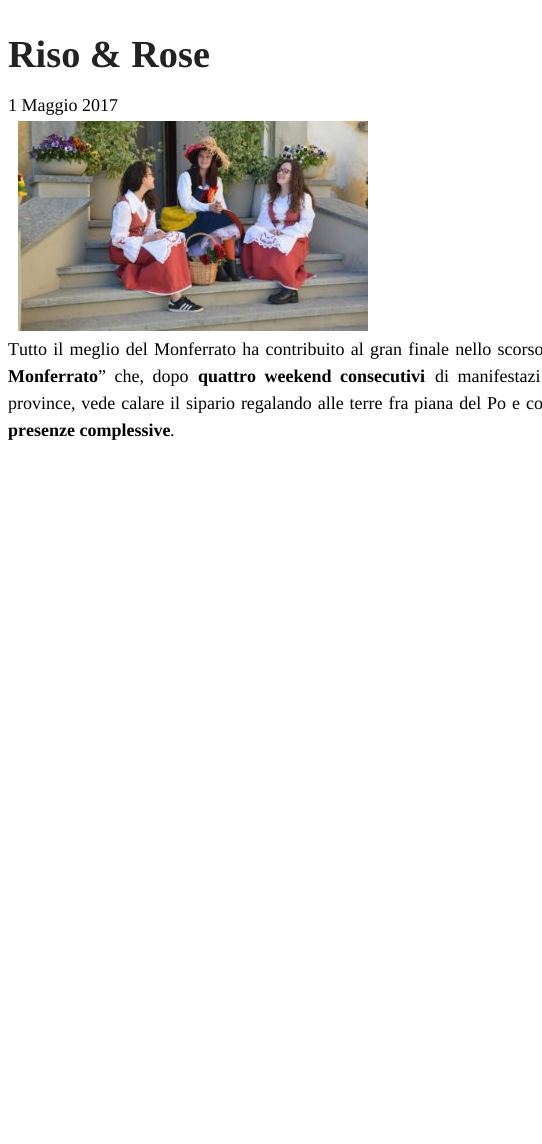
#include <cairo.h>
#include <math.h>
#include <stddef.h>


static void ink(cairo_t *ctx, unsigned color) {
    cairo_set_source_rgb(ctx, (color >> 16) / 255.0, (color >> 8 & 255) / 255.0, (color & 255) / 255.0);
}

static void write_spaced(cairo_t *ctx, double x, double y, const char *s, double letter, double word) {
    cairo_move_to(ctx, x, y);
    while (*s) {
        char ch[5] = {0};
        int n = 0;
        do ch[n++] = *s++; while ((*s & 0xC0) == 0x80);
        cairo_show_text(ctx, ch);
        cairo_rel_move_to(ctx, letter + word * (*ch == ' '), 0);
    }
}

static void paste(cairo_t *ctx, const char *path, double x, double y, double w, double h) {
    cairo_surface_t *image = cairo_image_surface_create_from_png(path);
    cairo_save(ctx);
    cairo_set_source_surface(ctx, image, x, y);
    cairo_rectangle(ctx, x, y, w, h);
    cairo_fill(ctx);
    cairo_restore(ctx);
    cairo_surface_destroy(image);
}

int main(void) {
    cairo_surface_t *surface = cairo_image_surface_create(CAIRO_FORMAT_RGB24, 542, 1144);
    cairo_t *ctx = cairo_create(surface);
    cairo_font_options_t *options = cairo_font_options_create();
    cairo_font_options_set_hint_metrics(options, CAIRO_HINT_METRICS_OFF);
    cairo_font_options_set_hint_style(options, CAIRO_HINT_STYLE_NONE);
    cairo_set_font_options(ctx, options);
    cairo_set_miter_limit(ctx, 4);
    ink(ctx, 0xFFFFFF);
    cairo_paint(ctx);
    cairo_select_font_face(ctx, "Liberation Serif", CAIRO_FONT_SLANT_NORMAL, CAIRO_FONT_WEIGHT_BOLD);
    cairo_set_font_size(ctx, 38.25);
    ink(ctx, 0x222222);
    cairo_move_to(ctx, 8, 67);
    cairo_show_text(ctx, "Riso & Rose");
    cairo_select_font_face(ctx, "Liberation Serif", CAIRO_FONT_SLANT_NORMAL, CAIRO_FONT_WEIGHT_NORMAL);
    cairo_set_font_size(ctx, 18);
    ink(ctx, 0x000000);
    cairo_move_to(ctx, 8, 111);
    cairo_show_text(ctx, "1 Maggio 2017");
    paste(ctx, "media/1.png", 18, 121, 350, 210);
    write_spaced(ctx, 8, 355, "Tutto il meglio del Monferrato ha contribuito al gran finale nello scorso", 0, 1.75);
    cairo_select_font_face(ctx, "Liberation Serif", CAIRO_FONT_SLANT_NORMAL, CAIRO_FONT_WEIGHT_BOLD);
    cairo_move_to(ctx, 8, 382);
    cairo_show_text(ctx, "Monferrato");
    cairo_select_font_face(ctx, "Liberation Serif", CAIRO_FONT_SLANT_NORMAL, CAIRO_FONT_WEIGHT_NORMAL);
    write_spaced(ctx, 98, 382, "” che, dopo", 0, 4);
    cairo_select_font_face(ctx, "Liberation Serif", CAIRO_FONT_SLANT_NORMAL, CAIRO_FONT_WEIGHT_BOLD);
    write_spaced(ctx, 198, 382, "quattro weekend consecutivi", 0, 4);
    cairo_select_font_face(ctx, "Liberation Serif", CAIRO_FONT_SLANT_NORMAL, CAIRO_FONT_WEIGHT_NORMAL);
    write_spaced(ctx, 435, 382, "di manifestazi", 0, 4);
    write_spaced(ctx, 8, 409, "province, vede calare il sipario regalando alle terre fra piana del Po e co", 0, 1.4);
    cairo_select_font_face(ctx, "Liberation Serif", CAIRO_FONT_SLANT_NORMAL, CAIRO_FONT_WEIGHT_BOLD);
    cairo_move_to(ctx, 8, 436);
    cairo_show_text(ctx, "presenze complessive");
    cairo_select_font_face(ctx, "Liberation Serif", CAIRO_FONT_SLANT_NORMAL, CAIRO_FONT_WEIGHT_NORMAL);
    cairo_move_to(ctx, 170, 436);
    cairo_show_text(ctx, ".");
    cairo_surface_write_to_png(surface, "image.png");
    cairo_font_options_destroy(options);
    cairo_destroy(ctx);
    cairo_surface_destroy(surface);
    return 0;
}
